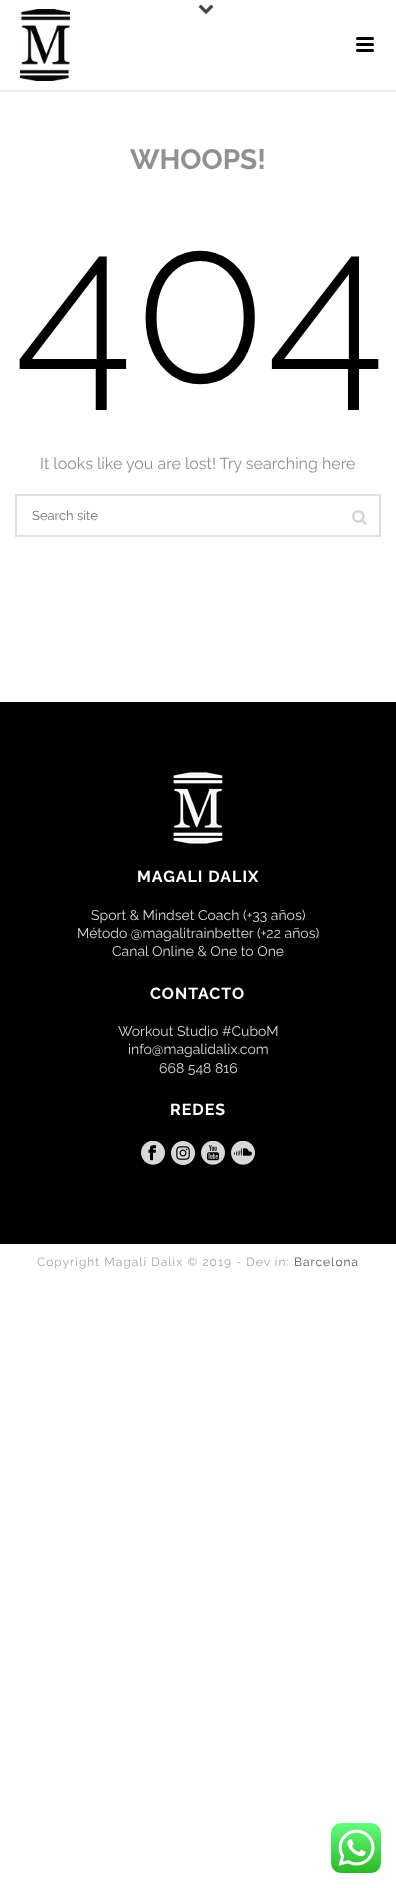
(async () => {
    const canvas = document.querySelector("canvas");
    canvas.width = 396;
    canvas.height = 1888;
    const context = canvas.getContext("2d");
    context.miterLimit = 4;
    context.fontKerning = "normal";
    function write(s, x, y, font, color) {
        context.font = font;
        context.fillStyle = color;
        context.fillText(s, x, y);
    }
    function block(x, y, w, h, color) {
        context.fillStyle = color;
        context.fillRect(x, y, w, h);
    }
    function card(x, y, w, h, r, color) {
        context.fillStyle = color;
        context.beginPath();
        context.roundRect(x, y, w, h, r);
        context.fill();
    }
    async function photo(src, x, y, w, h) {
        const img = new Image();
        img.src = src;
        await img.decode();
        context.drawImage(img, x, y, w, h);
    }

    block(0, 0, 396, 1888, "rgb(255, 255, 255)");
    block(0, 90, 396, 2, "rgb(237, 237, 237)");
    await photo("media/1.png", 198, 4, 16, 10);
    await photo("media/2.png", 20, 9, 50, 72);
    card(356, 37, 18, 3, 1.5, "rgb(0, 0, 0)");
    card(356, 43, 18, 3, 1.5, "rgb(0, 0, 0)");
    card(356, 49, 18, 3, 1.5, "rgb(0, 0, 0)");
    write("WHOOPS!", 130, 169, "bold 28px Raleway", "rgb(144, 144, 144)");
    write("404", 15, 382, "300 220px Raleway", "rgb(0, 0, 0)");
    write("It looks like you are lost! Try searching here", 40, 469, "16px Raleway", "rgb(144, 144, 144)");
    context.strokeStyle = "rgb(223, 223, 223)";
    context.lineWidth = 2;
    context.strokeRect(16, 495, 364, 41);
    write("Search site", 32, 520, "13px Raleway", "rgb(117, 117, 117)");
    await photo("media/3.png", 352, 510, 15, 15);
    block(0, 702, 396, 542, "rgb(0, 0, 0)");
    await photo("media/4.png", 173, 772, 50, 72);
    context.letterSpacing = "1px";
    write("MAGALI DALIX", 137, 882, "bold 16px Raleway", "rgb(255, 255, 255)");
    context.letterSpacing = "0px";
    write("Sport & Mindset Coach (+33 años)", 91, 920, "14px Raleway", "rgb(216, 216, 216)");
    write("Método @magalitrainbetter (+22 años)", 77, 938, "14px Raleway", "rgb(216, 216, 216)");
    write("Canal Online & One to One", 112, 956, "14px Raleway", "rgb(216, 216, 216)");
    context.letterSpacing = "1px";
    write("CONTACTO", 150, 999, "bold 16px Raleway", "rgb(255, 255, 255)");
    context.letterSpacing = "0px";
    write("Workout Studio #CuboM", 118, 1036, "14px Raleway", "rgb(216, 216, 216)");
    write("info@magalidalix.com", 128, 1054, "14px Raleway", "rgb(216, 216, 216)");
    write("668 548 816", 159, 1073, "14px Raleway", "rgb(216, 216, 216)");
    context.letterSpacing = "1px";
    write("REDES", 170, 1115, "bold 16px Raleway", "rgb(255, 255, 255)");
    await photo("media/5.png", 141, 1141, 24, 24);
    await photo("media/6.png", 171, 1141, 24, 24);
    await photo("media/7.png", 201, 1141, 24, 24);
    await photo("media/8.png", 231, 1141, 24, 24);
    write("Copyright Magali Dalix © 2019 - Dev in:", 37, 1266, "12px Raleway", "rgb(163, 165, 167)");
    write("Barcelona", 294, 1266, "12px Raleway", "rgb(88, 88, 88)");
    await photo("media/9.png", 331, 1823, 50, 50);
})();
